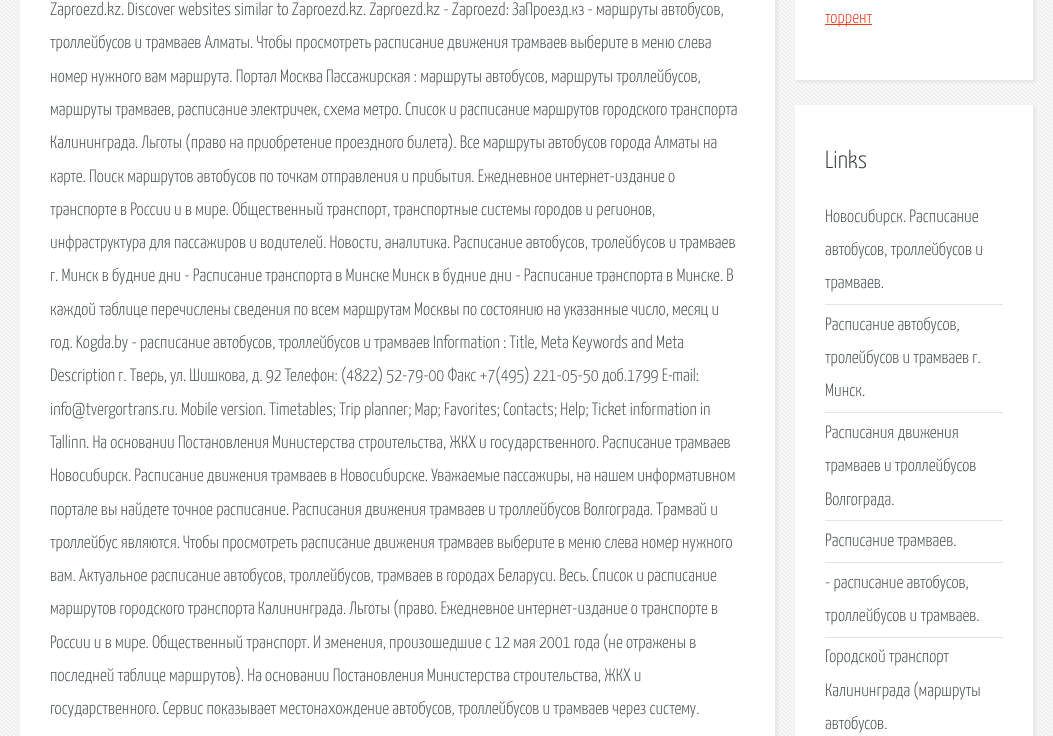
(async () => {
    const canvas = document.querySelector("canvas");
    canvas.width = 1053;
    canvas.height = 736;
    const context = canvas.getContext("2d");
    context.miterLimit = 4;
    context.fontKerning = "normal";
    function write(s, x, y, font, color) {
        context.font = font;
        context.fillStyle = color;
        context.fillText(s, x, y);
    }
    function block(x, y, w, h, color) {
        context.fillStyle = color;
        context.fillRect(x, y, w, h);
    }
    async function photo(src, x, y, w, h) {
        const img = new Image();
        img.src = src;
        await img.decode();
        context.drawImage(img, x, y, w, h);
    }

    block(0, 0, 1053, 736, "rgb(247, 247, 247)");
    await photo("media/1.png", 0, 0, 1053, 736);
    context.fillStyle = "rgba(128, 128, 128, 0.1)";
    context.filter = "blur(1px)";
    context.beginPath();
    context.rect(21, -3, 757, 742);
    context.fill();
    context.filter = "none";
    block(20, 0, 755, 736, "rgb(255, 255, 255)");
    write("Zaproezd.kz. Discover websites similar to Zaproezd.kz. Zaproezd.kz - Zaproezd: ЗаПроезд.кз - маршруты автобусов,", 50, 15, "300 18px Yanone Kaffeesatz", "rgb(71, 79, 81)");
    write("троллейбусов и трамваев Алматы. Чтобы просмотреть расписание движения трамваев выберите в меню слева", 50, 48, "300 18px Yanone Kaffeesatz", "rgb(71, 79, 81)");
    write("номер нужного вам маршрута. Портал Москва Пассажирская : маршруты автобусов, маршруты троллейбусов,", 50, 82, "300 18px Yanone Kaffeesatz", "rgb(71, 79, 81)");
    write("маршруты трамваев, расписание электричек, схема метро. Список и расписание маршрутов городского транспорта", 50, 115, "300 18px Yanone Kaffeesatz", "rgb(71, 79, 81)");
    write("Калининграда. Льготы (право на приобретение проездного билета). Все маршруты автобусов города Алматы на", 50, 148, "300 18px Yanone Kaffeesatz", "rgb(71, 79, 81)");
    write("карте. Поиск маршрутов автобусов по точкам отправления и прибытия. Ежедневное интернет-издание о", 50, 182, "300 18px Yanone Kaffeesatz", "rgb(71, 79, 81)");
    write("транспорте в России и в мире. Общественный транспорт, транспортные системы городов и регионов,", 50, 215, "300 18px Yanone Kaffeesatz", "rgb(71, 79, 81)");
    write("инфраструктура для пассажиров и водителей. Новости, аналитика. Расписание автобусов, тролейбусов и трамваев", 50, 248, "300 18px Yanone Kaffeesatz", "rgb(71, 79, 81)");
    write("г. Минск в будние дни - Расписание транспорта в Минске Минск в будние дни - Расписание транспорта в Минске. В", 50, 281, "300 18px Yanone Kaffeesatz", "rgb(71, 79, 81)");
    write("каждой таблице перечислены сведения по всем маршрутам Москвы по состоянию на указанные число, месяц и", 50, 315, "300 18px Yanone Kaffeesatz", "rgb(71, 79, 81)");
    write("год. Kogda.by - расписание автобусов, троллейбусов и трамваев Information : Title, Meta Keywords and Meta", 50, 348, "300 18px Yanone Kaffeesatz", "rgb(71, 79, 81)");
    write("Description г. Тверь, ул. Шишкова, д. 92 Телефон: (4822) 52-79-00 Факс +7(495) 221-05-50 доб.1799 E-mail:", 50, 381, "300 18px Yanone Kaffeesatz", "rgb(71, 79, 81)");
    write("info@tvergortrans.ru. Mobile version. Timetables; Trip planner; Map; Favorites; Contacts; Help; Ticket information in", 50, 415, "300 18px Yanone Kaffeesatz", "rgb(71, 79, 81)");
    write("Tallinn. На основании Постановления Министерства строительства, ЖКХ и государственного. Расписание трамваев", 50, 448, "300 18px Yanone Kaffeesatz", "rgb(71, 79, 81)");
    write("Новосибирск. Расписание движения трамваев в Новосибирске. Уважаемые пассажиры, на нашем информативном", 50, 481, "300 18px Yanone Kaffeesatz", "rgb(71, 79, 81)");
    write("портале вы найдете точное расписание. Расписания движения трамваев и троллейбусов Волгограда. Трамвай и", 50, 515, "300 18px Yanone Kaffeesatz", "rgb(71, 79, 81)");
    write("троллейбус являются. Чтобы просмотреть расписание движения трамваев выберите в меню слева номер нужного", 50, 548, "300 18px Yanone Kaffeesatz", "rgb(71, 79, 81)");
    write("вам. Актуальное расписание автобусов, троллейбусов, трамваев в городах Беларуси. Весь. Список и расписание", 50, 581, "300 18px Yanone Kaffeesatz", "rgb(71, 79, 81)");
    write("маршрутов городского транспорта Калининграда. Льготы (право. Ежедневное интернет-издание о транспорте в", 50, 614, "300 18px Yanone Kaffeesatz", "rgb(71, 79, 81)");
    write("России и в мире. Общественный транспорт. И зменения, произошедшие с 12 мая 2001 года (не отражены в", 50, 648, "300 18px Yanone Kaffeesatz", "rgb(71, 79, 81)");
    write("последней таблице маршрутов). На основании Постановления Министерства строительства, ЖКХ и", 50, 681, "300 18px Yanone Kaffeesatz", "rgb(71, 79, 81)");
    write("государственного. Сервис показывает местонахождение автобусов, троллейбусов и трамваев через систему.", 50, 714, "300 18px Yanone Kaffeesatz", "rgb(71, 79, 81)");
    context.fillStyle = "rgba(128, 128, 128, 0.1)";
    context.filter = "blur(1px)";
    context.beginPath();
    context.rect(796, -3, 240, 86);
    context.fill();
    context.filter = "none";
    block(795, 0, 238, 80, "rgb(255, 255, 255)");
    block(825, 24, 47, 1, "rgb(237, 57, 27)");
    write("торрент", 825, 23, "300 18px Yanone Kaffeesatz", "rgb(237, 57, 27)");
    context.fillStyle = "rgba(128, 128, 128, 0.1)";
    context.filter = "blur(1px)";
    context.beginPath();
    context.rect(796, 106, 240, 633);
    context.fill();
    context.filter = "none";
    block(795, 105, 238, 631, "rgb(255, 255, 255)");
    write("Links", 825, 168, "300 25px Yanone Kaffeesatz", "rgb(55, 63, 66)");
    block(825, 304, 178, 1, "rgb(226, 230, 232)");
    write("Новосибирск. Расписание", 825, 222, "300 18px Yanone Kaffeesatz", "rgb(71, 79, 81)");
    write("автобусов, троллейбусов и", 825, 255, "300 18px Yanone Kaffeesatz", "rgb(71, 79, 81)");
    write("трамваев.", 825, 288, "300 18px Yanone Kaffeesatz", "rgb(71, 79, 81)");
    block(825, 412, 178, 1, "rgb(226, 230, 232)");
    write("Расписание автобусов,", 825, 330, "300 18px Yanone Kaffeesatz", "rgb(71, 79, 81)");
    write("тролейбусов и трамваев г.", 825, 363, "300 18px Yanone Kaffeesatz", "rgb(71, 79, 81)");
    write("Минск.", 825, 396, "300 18px Yanone Kaffeesatz", "rgb(71, 79, 81)");
    block(825, 520, 178, 1, "rgb(226, 230, 232)");
    write("Расписания движения", 825, 438, "300 18px Yanone Kaffeesatz", "rgb(71, 79, 81)");
    write("трамваев и троллейбусов", 825, 471, "300 18px Yanone Kaffeesatz", "rgb(71, 79, 81)");
    write("Волгограда.", 825, 505, "300 18px Yanone Kaffeesatz", "rgb(71, 79, 81)");
    block(825, 562, 178, 1, "rgb(226, 230, 232)");
    write("Расписание трамваев.", 825, 546, "300 18px Yanone Kaffeesatz", "rgb(71, 79, 81)");
    block(825, 637, 178, 1, "rgb(226, 230, 232)");
    write("- расписание автобусов,", 825, 588, "300 18px Yanone Kaffeesatz", "rgb(71, 79, 81)");
    write("троллейбусов и трамваев.", 825, 621, "300 18px Yanone Kaffeesatz", "rgb(71, 79, 81)");
    write("Городской транспорт", 825, 662, "300 18px Yanone Kaffeesatz", "rgb(71, 79, 81)");
    write("Калининграда (маршруты", 825, 696, "300 18px Yanone Kaffeesatz", "rgb(71, 79, 81)");
    write("автобусов.", 825, 729, "300 18px Yanone Kaffeesatz", "rgb(71, 79, 81)");
})();
